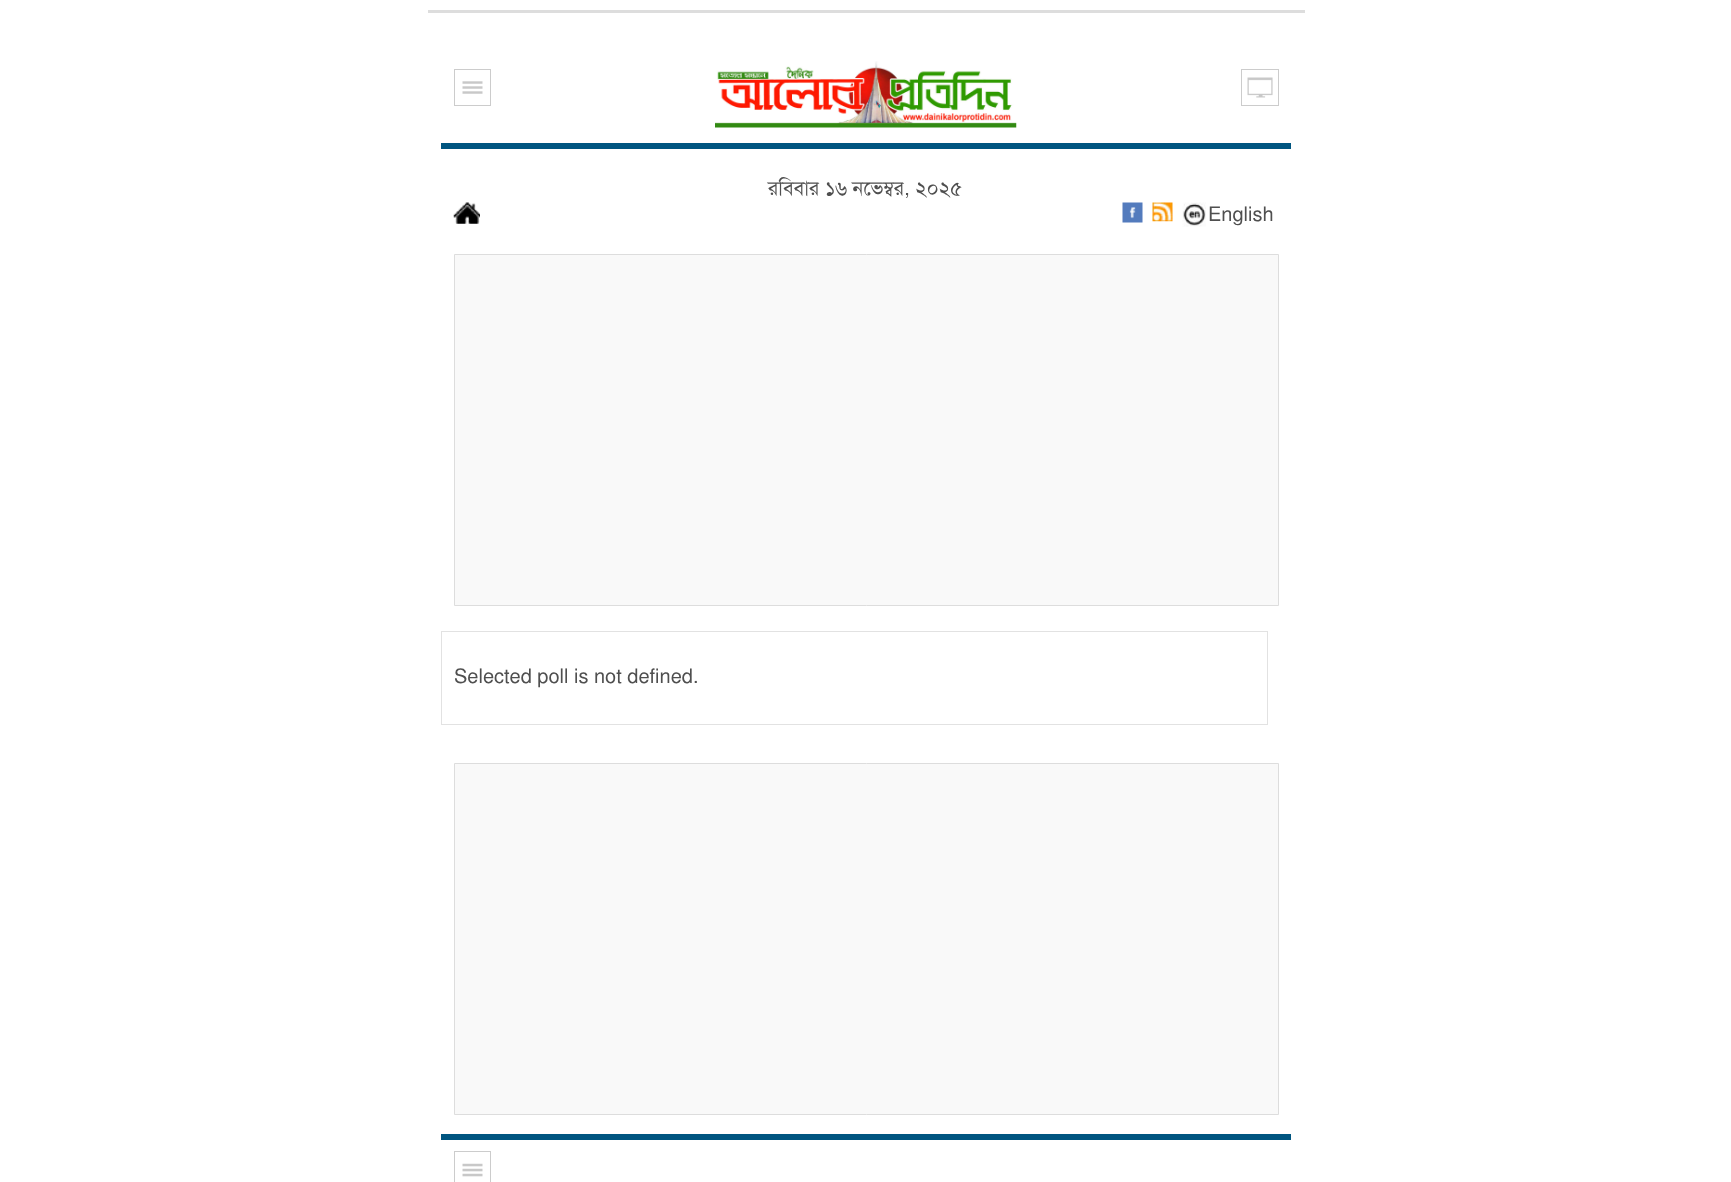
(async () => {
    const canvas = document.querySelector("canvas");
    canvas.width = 1731;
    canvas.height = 1182;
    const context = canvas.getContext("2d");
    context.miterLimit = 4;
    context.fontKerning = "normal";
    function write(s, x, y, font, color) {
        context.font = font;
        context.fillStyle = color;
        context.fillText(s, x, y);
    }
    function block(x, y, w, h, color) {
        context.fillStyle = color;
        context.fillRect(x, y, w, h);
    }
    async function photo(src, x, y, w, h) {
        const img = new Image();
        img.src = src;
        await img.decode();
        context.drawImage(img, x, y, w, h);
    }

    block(0, 0, 1731, 1182, "rgb(255, 255, 255)");
    block(428, 10, 877, 3, "rgb(221, 221, 221)");
    block(441, 143, 850, 6, "rgb(0, 85, 128)");
    await photo("media/1.png", 462, 81, 21, 13);
    context.strokeStyle = "rgb(204, 204, 204)";
    context.strokeRect(454.5, 69.5, 36, 36);
    await photo("media/2.png", 715, 61, 302, 67);
    await photo("media/3.png", 1247, 77, 26, 21);
    context.strokeRect(1241.5, 69.5, 37, 36);
    write("রবিবার ১৬ নভেম্বর, ২০২৫", 768, 195, "20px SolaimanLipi", "rgb(79, 79, 79)");
    await photo("media/4.png", 453, 202, 27, 22);
    await photo("media/5.png", 1122, 202, 21, 21);
    await photo("media/6.png", 1152, 202, 21, 20);
    await photo("media/7.png", 1182, 202, 24, 25);
    write("English", 1208, 221, "20px SolaimanLipi", "rgb(79, 79, 79)");
    context.fillStyle = "rgb(249, 249, 249)";
    context.beginPath();
    context.rect(454.5, 254.5, 824, 351);
    context.fill();
    context.strokeStyle = "rgb(221, 221, 221)";
    context.stroke();
    context.strokeStyle = "rgb(226, 226, 226)";
    context.strokeRect(441.5, 631.5, 826, 93);
    write("Selected poll is not defined.", 454, 683, "20px SolaimanLipi", "rgb(79, 79, 79)");
    context.fillStyle = "rgb(249, 249, 249)";
    context.beginPath();
    context.rect(454.5, 763.5, 824, 351);
    context.fill();
    context.strokeStyle = "rgb(221, 221, 221)";
    context.stroke();
    block(441, 1134, 850, 6, "rgb(0, 85, 128)");
    await photo("media/8.png", 462, 1163, 21, 14);
    context.strokeStyle = "rgb(204, 204, 204)";
    context.strokeRect(454.5, 1151.5, 36, 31);
})();
